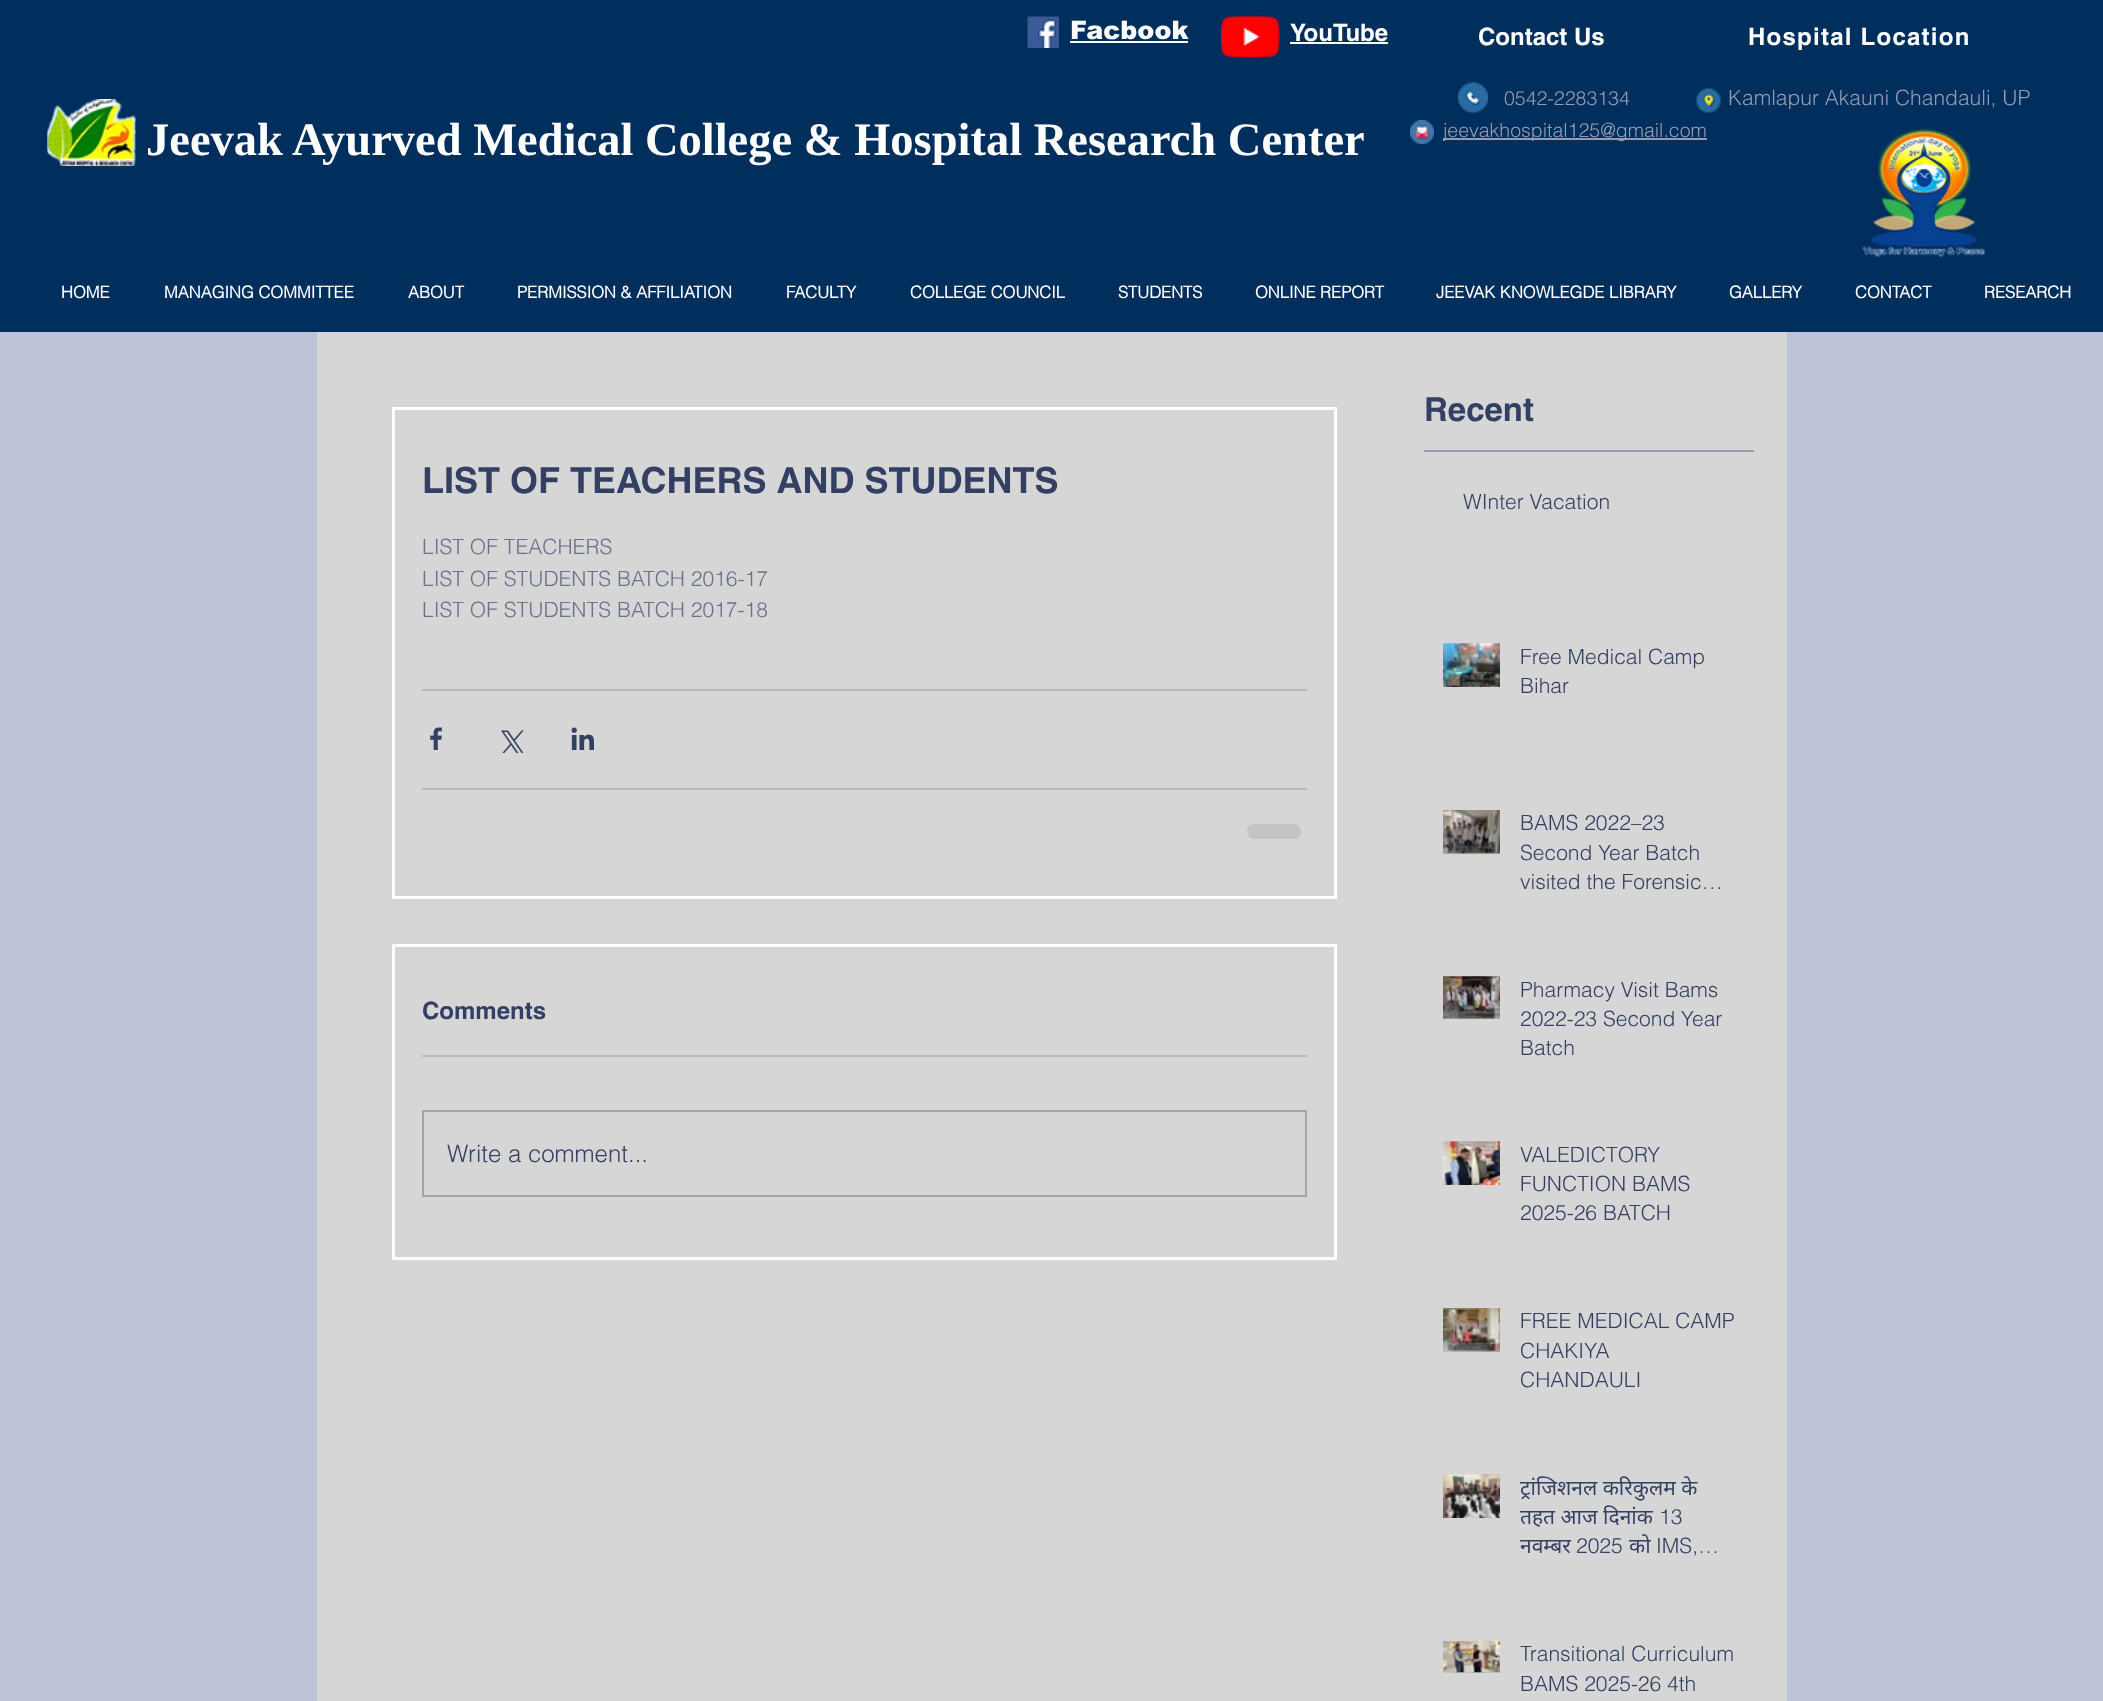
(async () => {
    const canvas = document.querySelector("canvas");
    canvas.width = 2103;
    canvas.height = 1701;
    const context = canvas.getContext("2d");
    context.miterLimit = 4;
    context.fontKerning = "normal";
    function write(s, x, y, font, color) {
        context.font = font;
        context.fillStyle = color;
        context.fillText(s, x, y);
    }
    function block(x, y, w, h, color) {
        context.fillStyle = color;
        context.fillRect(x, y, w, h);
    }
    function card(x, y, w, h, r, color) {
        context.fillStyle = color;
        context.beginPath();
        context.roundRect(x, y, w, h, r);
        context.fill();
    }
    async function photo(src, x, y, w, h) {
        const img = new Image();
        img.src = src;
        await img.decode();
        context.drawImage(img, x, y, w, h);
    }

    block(0, 0, 2103, 1701, "rgb(190, 196, 216)");
    block(0, 0, 2103, 332, "rgb(0, 46, 93)");
    await photo("media/1.png", 1027, 16, 32, 32);
    write("Facbook", 1070, 39, "900 25.5px arial", "rgb(255, 255, 255)");
    block(1070, 41, 118, 2, "rgb(255, 255, 255)");
    await photo("media/2.png", 1221, 15, 59, 44);
    write("YouTube", 1290, 41, "bold 24px helvetica", "rgb(255, 255, 255)");
    block(1290, 42, 98, 2, "rgb(255, 255, 255)");
    write("Contact Us", 1478, 45, "bold 24px helvetica", "rgb(255, 255, 255)");
    context.letterSpacing = "1.25px";
    write("Hospital Location", 1748, 45, "bold 24px helvetica", "rgb(255, 255, 255)");
    await photo("media/3.png", 1458, 82, 30, 31);
    await photo("media/4.png", 1696, 88, 25, 25);
    context.letterSpacing = "0px";
    write("Kamlapur Akauni Chandauli, UP", 1728, 105, "300 21px helvetica", "rgb(149, 156, 178)");
    await photo("media/5.png", 47, 99, 89, 68);
    write("Jeevak Ayurved Medical College & Hospital Research Center", 146, 155, "bold 46.5px Liberation Serif", "rgb(255, 255, 255)");
    await photo("media/6.png", 1410, 120, 24, 24);
    write("0542-2283134", 1504, 105, "300 19.5px helvetica", "rgb(149, 156, 178)");
    block(1443, 138, 264, 2, "rgb(149, 156, 178)");
    write("jeevakhospital125@gmail.com", 1443, 137, "300 19.5px helvetica", "rgb(149, 156, 178)");
    await photo("media/7.png", 1862, 128, 124, 129);
    write("HOME", 61, 298, "bold 16.5px 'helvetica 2'", "rgb(255, 255, 255)");
    write("MANAGING COMMITTEE", 164, 298, "bold 16.5px 'helvetica 2'", "rgb(255, 255, 255)");
    write("ABOUT", 408, 298, "bold 16.5px 'helvetica 2'", "rgb(255, 255, 255)");
    write("PERMISSION & AFFILIATION", 517, 298, "bold 16.5px 'helvetica 2'", "rgb(255, 255, 255)");
    write("FACULTY", 786, 298, "bold 16.5px 'helvetica 2'", "rgb(255, 255, 255)");
    write("COLLEGE COUNCIL", 910, 298, "bold 16.5px 'helvetica 2'", "rgb(255, 255, 255)");
    write("STUDENTS", 1118, 298, "bold 16.5px 'helvetica 2'", "rgb(255, 255, 255)");
    write("ONLINE REPORT", 1255, 298, "bold 16.5px 'helvetica 2'", "rgb(255, 255, 255)");
    write("JEEVAK KNOWLEGDE LIBRARY", 1436, 298, "bold 16.5px 'helvetica 2'", "rgb(255, 255, 255)");
    write("GALLERY", 1729, 298, "bold 16.5px 'helvetica 2'", "rgb(255, 255, 255)");
    write("CONTACT", 1855, 298, "bold 16.5px 'helvetica 2'", "rgb(255, 255, 255)");
    write("RESEARCH", 1984, 298, "bold 16.5px 'helvetica 2'", "rgb(255, 255, 255)");
    block(317, 332, 1470, 1369, "rgb(214, 214, 214)");
    write("Recent", 1424, 421, "bold 33px helvetica", "rgb(52, 63, 100)");
    block(1424, 450, 330, 2, "rgb(149, 156, 178)");
    context.strokeStyle = "rgb(255, 255, 255)";
    context.lineWidth = 3;
    context.strokeRect(393.5, 408.5, 942, 489);
    write("LIST OF TEACHERS AND STUDENTS", 422, 493, "bold 36px helvetica", "rgb(52, 63, 100)");
    write("LIST OF TEACHERS", 422, 554, "300 21px helvetica", "rgb(105, 113, 139)");
    write("LIST OF STUDENTS BATCH 2016-17", 422, 586, "300 21px helvetica", "rgb(105, 113, 139)");
    write("LIST OF STUDENTS BATCH 2017-18", 422, 617, "300 21px helvetica", "rgb(105, 113, 139)");
    block(422, 689, 885, 2, "rgb(182, 184, 191)");
    await photo("media/8.png", 430, 727, 12, 23);
    await photo("media/9.png", 501, 730, 23, 23);
    await photo("media/10.png", 571, 727, 23, 23);
    block(422, 788, 885, 2, "rgb(182, 184, 191)");
    card(1247, 824, 54, 15, 7.5, "rgb(195, 196, 200)");
    context.strokeRect(393.5, 945.5, 942, 313);
    write("Comments", 422, 1019, "bold 24px helvetica", "rgb(52, 63, 100)");
    block(422, 1055, 885, 2, "rgb(182, 184, 191)");
    context.strokeStyle = "rgb(164, 164, 164)";
    context.lineWidth = 2;
    context.strokeRect(423, 1111, 883, 85);
    write("Write a comment...", 447, 1162, "300 24px helvetica", "rgb(52, 63, 100)");
    write("WInter Vacation", 1463, 509, "300 21px helvetica", "rgb(52, 63, 100)");
    await photo("media/11.png", 1443, 643, 57, 1);
    await photo("media/12.png", 1443, 643, 57, 44);
    write("Free Medical Camp", 1520, 664, "300 21px helvetica", "rgb(52, 63, 100)");
    write("Bihar", 1520, 693, "300 21px helvetica", "rgb(52, 63, 100)");
    await photo("media/13.png", 1443, 810, 57, 43);
    await photo("media/14.png", 1443, 853, 57, 1);
    write("BAMS 2022–23", 1520, 830, "300 21px helvetica", "rgb(52, 63, 100)");
    write("Second Year Batch", 1520, 860, "300 21px helvetica", "rgb(52, 63, 100)");
    write("visited the Forensic…", 1520, 889, "300 21px helvetica", "rgb(52, 63, 100)");
    await photo("media/15.png", 1443, 976, 57, 43);
    await photo("media/16.png", 1443, 976, 57, 43);
    write("Pharmacy Visit Bams", 1520, 997, "300 21px helvetica", "rgb(52, 63, 100)");
    write("2022-23 Second Year", 1520, 1026, "300 21px helvetica", "rgb(52, 63, 100)");
    write("Batch", 1520, 1055, "300 21px helvetica", "rgb(52, 63, 100)");
    await photo("media/17.png", 1443, 1141, 57, 1);
    await photo("media/18.png", 1443, 1141, 57, 44);
    write("VALEDICTORY", 1520, 1162, "300 21px helvetica", "rgb(52, 63, 100)");
    write("FUNCTION BAMS", 1520, 1191, "300 21px helvetica", "rgb(52, 63, 100)");
    write("2025-26 BATCH", 1520, 1220, "300 21px helvetica", "rgb(52, 63, 100)");
    await photo("media/19.png", 1443, 1308, 57, 43);
    await photo("media/20.png", 1443, 1351, 57, 1);
    write("FREE MEDICAL CAMP", 1520, 1328, "300 21px helvetica", "rgb(52, 63, 100)");
    write("CHAKIYA", 1520, 1358, "300 21px helvetica", "rgb(52, 63, 100)");
    write("CHANDAULI", 1520, 1387, "300 21px helvetica", "rgb(52, 63, 100)");
    await photo("media/21.png", 1443, 1474, 57, 1);
    await photo("media/22.png", 1443, 1474, 57, 44);
    context.save();
    context.beginPath();
    context.rect(1520, 1473, 216, 89);
    context.clip();
    write("ट्रांजिशनल करिकुलम के", 1520, 1495, "21px Noto Sans", "rgb(52, 63, 100)");
    context.restore();
    write("तहत आज दिनांक", 1520, 1524, "21px Noto Sans", "rgb(52, 63, 100)");
    write("13", 1659, 1524, "300 21px helvetica", "rgb(52, 63, 100)");
    write("नवम्बर", 1520, 1553, "21px Noto Sans", "rgb(52, 63, 100)");
    write("2025", 1576, 1553, "300 21px helvetica", "rgb(52, 63, 100)");
    write("को", 1629, 1553, "21px Noto Sans", "rgb(52, 63, 100)");
    write("IMS,…", 1656, 1553, "300 21px helvetica", "rgb(52, 63, 100)");
    await photo("media/23.png", 1443, 1641, 57, 31);
    await photo("media/24.png", 1443, 1672, 57, 1);
    write("Transitional Curriculum", 1520, 1661, "300 21px helvetica", "rgb(52, 63, 100)");
    write("BAMS 2025-26 4th", 1520, 1691, "300 21px helvetica", "rgb(52, 63, 100)");
})();
